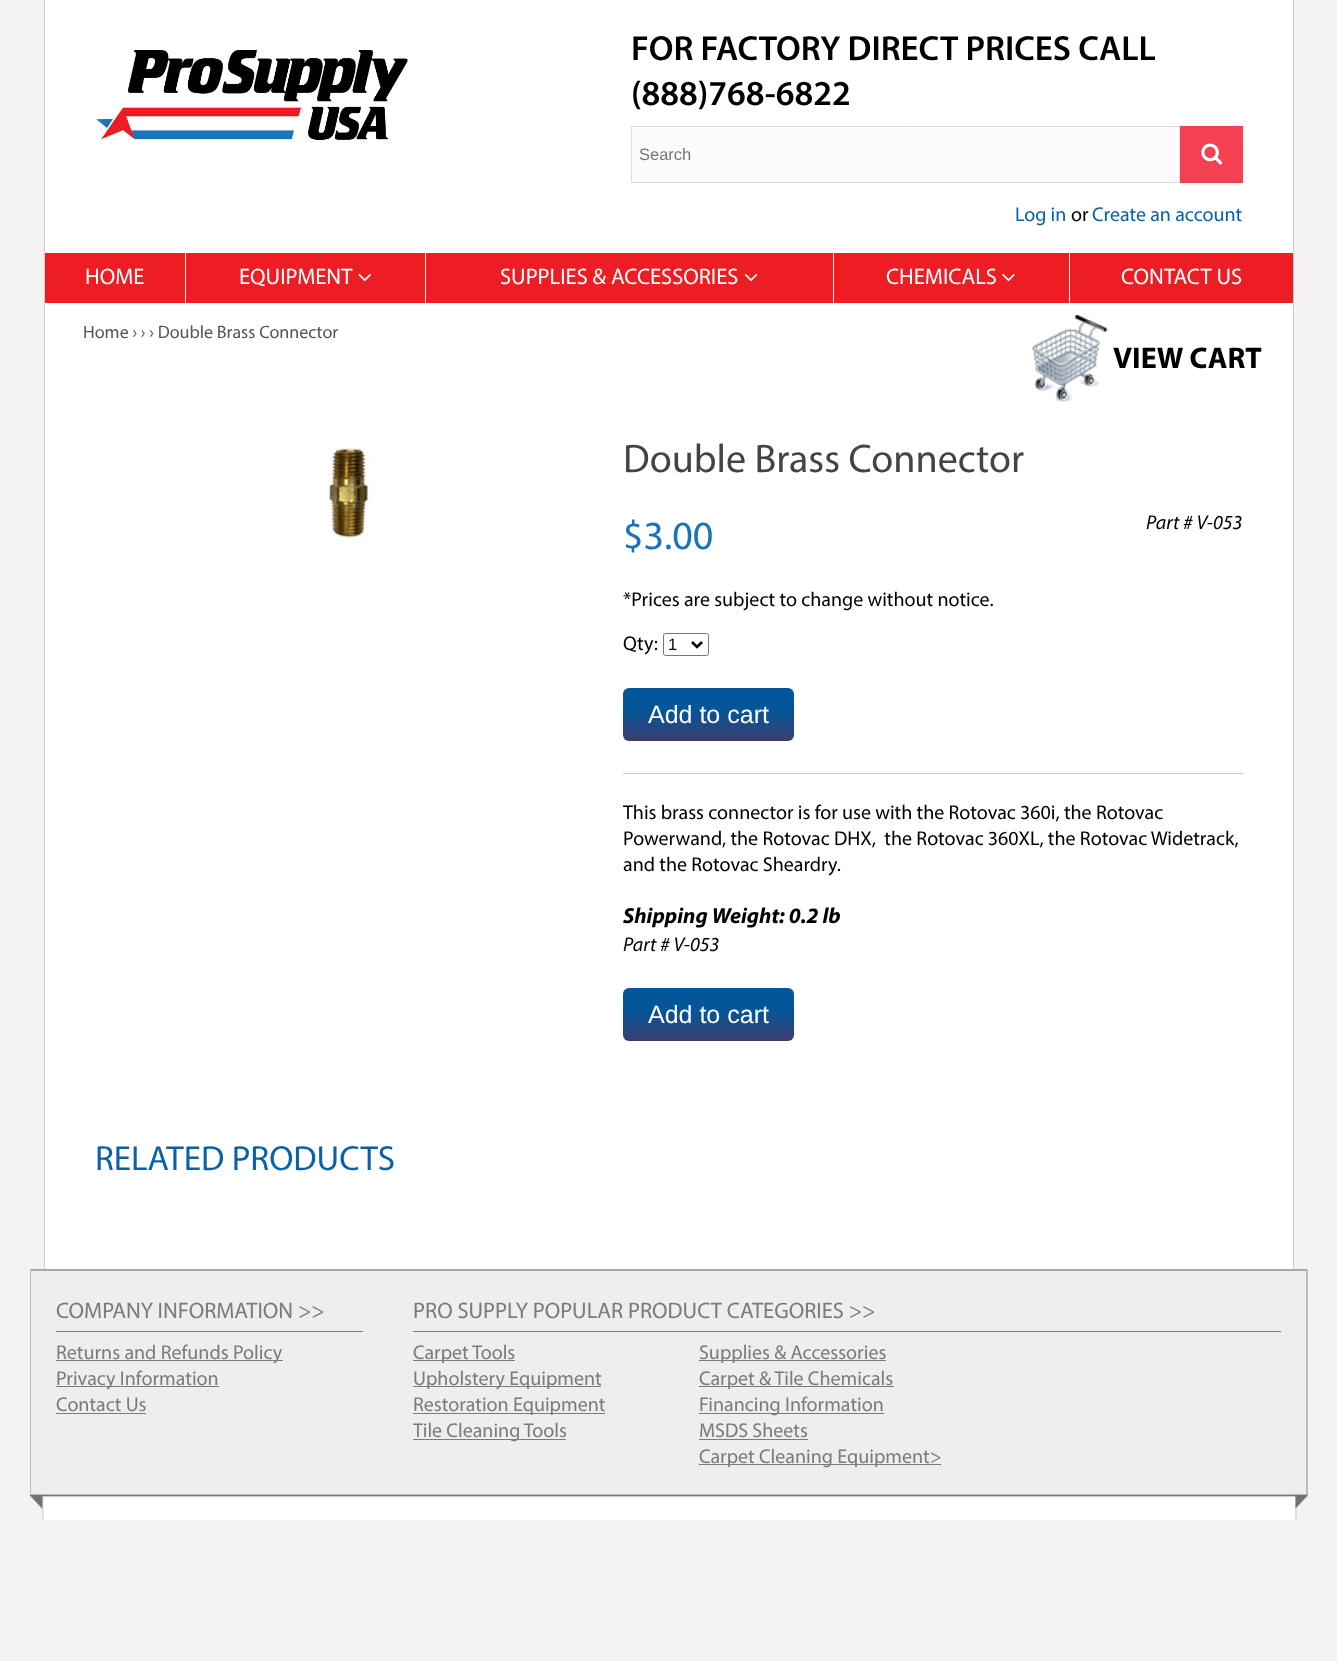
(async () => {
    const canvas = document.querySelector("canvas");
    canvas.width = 1337;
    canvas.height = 1661;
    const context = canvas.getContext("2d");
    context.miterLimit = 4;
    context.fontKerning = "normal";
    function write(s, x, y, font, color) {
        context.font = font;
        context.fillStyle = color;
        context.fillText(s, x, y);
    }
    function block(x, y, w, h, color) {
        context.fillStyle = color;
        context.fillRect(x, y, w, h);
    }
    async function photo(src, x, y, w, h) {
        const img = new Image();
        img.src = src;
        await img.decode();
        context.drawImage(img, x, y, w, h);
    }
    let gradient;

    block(0, 0, 1337, 1661, "rgb(245, 242, 242)");
    block(45, 0, 1248, 1269, "rgb(255, 255, 255)");
    block(1293, 0, 1, 1269, "rgb(213, 206, 206)");
    block(44, 0, 1, 1269, "rgb(213, 206, 206)");
    await photo("media/1.png", 96, 50, 312, 91);
    write("FOR FACTORY DIRECT PRICES CALL", 631, 60, "600 35px Myriad", "rgb(0, 0, 0)");
    write("(888)768-6822", 631, 105, "600 35px Myriad", "rgb(0, 0, 0)");
    context.fillStyle = "rgb(251, 251, 251)";
    context.beginPath();
    context.rect(631.5, 126.5, 548, 56);
    context.fill();
    context.strokeStyle = "rgb(220, 218, 218)";
    context.stroke();
    write("Search", 639, 160, "16.5px Liberation Sans", "rgb(117, 117, 117)");
    block(1180, 126, 63, 57, "rgb(244, 64, 81)");
    await photo("media/2.png", 1201, 143, 22, 22);
    write("Log in", 1015, 221, "20px Myriad", "rgb(9, 98, 169)");
    write("or", 1071, 221, "20px Myriad", "rgb(0, 0, 0)");
    write("Create an account", 1092, 221, "20px Myriad", "rgb(9, 98, 169)");
    block(45, 253, 1248, 50, "rgb(236, 29, 35)");
    block(185, 253, 1, 50, "rgb(255, 255, 255)");
    write("HOME", 85, 284, "22.5px Myriad", "rgb(255, 255, 255)");
    block(425, 253, 1, 50, "rgb(255, 255, 255)");
    write("EQUIPMENT", 239, 284, "22.5px Myriad", "rgb(255, 255, 255)");
    await photo("media/3.png", 358, 274, 13, 8);
    block(833, 253, 1, 50, "rgb(255, 255, 255)");
    write("SUPPLIES & ACCESSORIES", 500, 284, "22.5px Myriad", "rgb(255, 255, 255)");
    await photo("media/4.png", 744, 274, 14, 8);
    block(1069, 253, 1, 50, "rgb(255, 255, 255)");
    write("CHEMICALS", 886, 284, "22.5px Myriad", "rgb(255, 255, 255)");
    await photo("media/5.png", 1002, 274, 13, 8);
    write("CONTACT US", 1121, 284, "22.5px Myriad", "rgb(255, 255, 255)");
    write("Home › › › Double Brass Connector", 83, 338, "18px Myriad", "rgb(85, 85, 85)");
    await photo("media/6.png", 1031, 315, 78, 87);
    write("VIEW CART", 1113, 368, "bold 30px Myriad", "rgb(0, 0, 0)");
    await photo("media/7.png", 328, 446, 43, 95);
    write("Double Brass Connector", 623, 472, "40px Myriad", "rgb(68, 68, 68)");
    write("$3.00", 623, 549, "40px Myriad", "rgb(23, 115, 189)");
    write("Part # V-053", 1146, 529, "italic 20px Myriad", "rgb(0, 0, 0)");
    write("*Prices are subject to change without notice.", 623, 606, "20px Myriad", "rgb(0, 0, 0)");
    write("Qty:", 623, 650, "20px Myriad", "rgb(0, 0, 0)");
    context.beginPath();
    context.roundRect(663.5, 633.5, 45, 22, 2);
    context.strokeStyle = "rgb(118, 118, 118)";
    context.stroke();
    context.beginPath();
    context.moveTo(692, 642);
    context.lineTo(697, 647);
    context.lineTo(702, 642);
    context.strokeStyle = "rgb(0, 0, 0)";
    context.lineWidth = 2.5;
    context.stroke();
    write("1", 668, 650, "16.5px Liberation Sans", "rgb(0, 0, 0)");
    gradient = context.createLinearGradient(708, 688, 708, 741);
    gradient.addColorStop(0.41, "rgb(3, 86, 154)");
    gradient.addColorStop(1, "rgb(60, 61, 109)");
    context.fillStyle = gradient;
    context.beginPath();
    context.roundRect(623, 688, 171, 53, 6);
    context.fill();
    write("Add to cart", 648, 723, "25px Liberation Sans", "rgb(255, 255, 255)");
    block(623, 773, 620, 1, "rgb(206, 206, 206)");
    write("This brass connector is for use with the Rotovac 360i, the Rotovac", 623, 819, "20px Myriad", "rgb(0, 0, 0)");
    write("Powerwand, the Rotovac DHX,  the Rotovac 360XL, the Rotovac Widetrack,", 623, 845, "20px Myriad", "rgb(0, 0, 0)");
    write("and the Rotovac Sheardry.", 623, 871, "20px Myriad", "rgb(0, 0, 0)");
    write("Shipping Weight: 0.2 lb", 623, 923, "italic bold 22px Myriad", "rgb(0, 0, 0)");
    write("Part # V-053", 623, 951, "italic 20px Myriad", "rgb(0, 0, 0)");
    gradient = context.createLinearGradient(708, 988, 708, 1041);
    gradient.addColorStop(0.41, "rgb(3, 86, 154)");
    gradient.addColorStop(1, "rgb(60, 61, 109)");
    context.fillStyle = gradient;
    context.beginPath();
    context.roundRect(623, 988, 171, 53, 6);
    context.fill();
    write("Add to cart", 648, 1023, "25px Liberation Sans", "rgb(255, 255, 255)");
    write("RELATED PRODUCTS", 95, 1170, "35px Myriad", "rgb(9, 98, 169)");
    block(31, 1271, 1275, 223, "rgb(238, 238, 238)");
    context.fillStyle = "rgb(170, 170, 170)";
    context.beginPath();
    context.moveTo(30, 1269);
    context.lineTo(1308, 1269);
    context.lineTo(1306, 1271);
    context.lineTo(31, 1271);
    context.closePath();
    context.fill();
    context.fillStyle = "rgb(187, 187, 187)";
    context.beginPath();
    context.moveTo(1308, 1269);
    context.lineTo(1308, 1495);
    context.lineTo(1306, 1494);
    context.lineTo(1306, 1271);
    context.closePath();
    context.fill();
    block(30, 1494, 1278, 1, "rgb(187, 187, 187)");
    context.beginPath();
    context.moveTo(30, 1495);
    context.lineTo(30, 1269);
    context.lineTo(31, 1271);
    context.lineTo(31, 1494);
    context.closePath();
    context.fill();
    block(56, 1331, 307, 1, "rgb(123, 123, 123)");
    write("COMPANY INFORMATION >>", 56, 1318, "22.5px Myriad", "rgb(123, 123, 123)");
    block(56, 1360, 227, 1, "rgb(123, 123, 123)");
    write("Returns and Refunds Policy", 56, 1359, "20px Myriad", "rgb(123, 123, 123)");
    block(56, 1386, 163, 1, "rgb(123, 123, 123)");
    write("Privacy Information", 56, 1385, "20px Myriad", "rgb(123, 123, 123)");
    write("Contact Us", 56, 1411, "20px Myriad", "rgb(123, 123, 123)");
    block(56, 1413, 90, 1, "rgb(123, 123, 123)");
    block(413, 1331, 868, 1, "rgb(123, 123, 123)");
    write("PRO SUPPLY POPULAR PRODUCT CATEGORIES >>", 413, 1318, "22.5px Myriad", "rgb(123, 123, 123)");
    block(413, 1360, 102, 1, "rgb(123, 123, 123)");
    write("Carpet Tools", 413, 1359, "20px Myriad", "rgb(123, 123, 123)");
    block(413, 1386, 188, 1, "rgb(123, 123, 123)");
    write("Upholstery Equipment", 413, 1385, "20px Myriad", "rgb(123, 123, 123)");
    block(413, 1413, 192, 1, "rgb(123, 123, 123)");
    write("Restoration Equipment", 413, 1411, "20px Myriad", "rgb(123, 123, 123)");
    block(413, 1439, 153, 1, "rgb(123, 123, 123)");
    write("Tile Cleaning Tools", 413, 1437, "20px Myriad", "rgb(123, 123, 123)");
    block(699, 1360, 187, 1, "rgb(123, 123, 123)");
    write("Supplies & Accessories", 699, 1359, "20px Myriad", "rgb(123, 123, 123)");
    block(699, 1386, 195, 1, "rgb(123, 123, 123)");
    write("Carpet & Tile Chemicals", 699, 1385, "20px Myriad", "rgb(123, 123, 123)");
    block(699, 1413, 185, 1, "rgb(123, 123, 123)");
    write("Financing Information", 699, 1411, "20px Myriad", "rgb(123, 123, 123)");
    write("MSDS Sheets", 699, 1437, "20px Myriad", "rgb(123, 123, 123)");
    block(699, 1439, 109, 1, "rgb(123, 123, 123)");
    block(699, 1464, 242, 1, "rgb(123, 123, 123)");
    write("Carpet Cleaning Equipment>", 699, 1463, "20px Myriad", "rgb(123, 123, 123)");
    await photo("media/8.png", 30, 1495, 1278, 25);
})();
